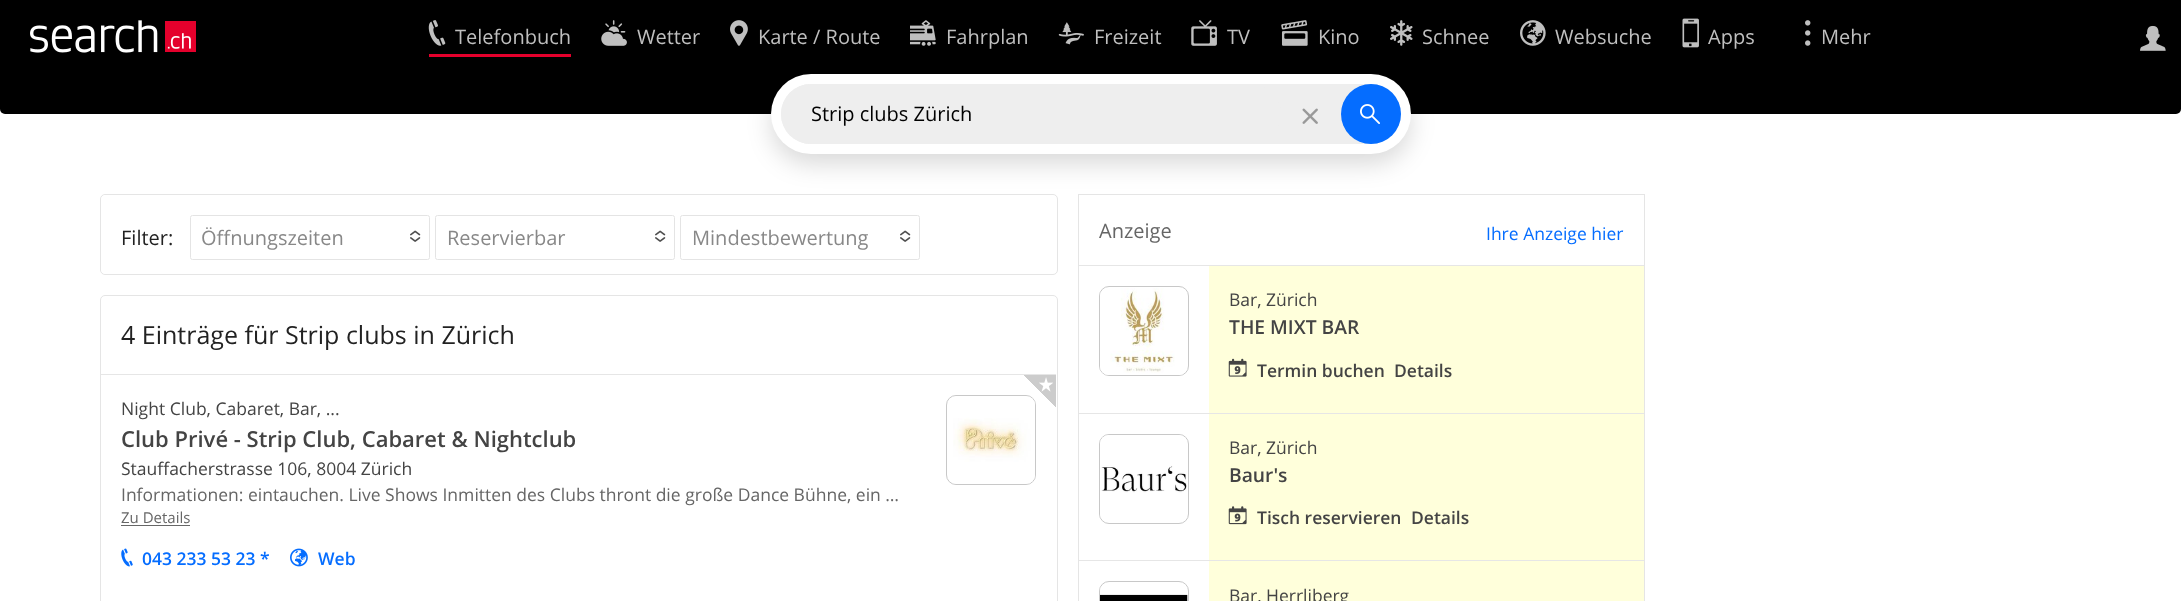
(async () => {
    const canvas = document.querySelector("canvas");
    canvas.width = 2181;
    canvas.height = 601;
    const context = canvas.getContext("2d");
    context.miterLimit = 4;
    context.fontKerning = "normal";
    function write(s, x, y, font, color) {
        context.font = font;
        context.fillStyle = color;
        context.fillText(s, x, y);
    }
    function block(x, y, w, h, color) {
        context.fillStyle = color;
        context.fillRect(x, y, w, h);
    }
    function card(x, y, w, h, r, color) {
        context.fillStyle = color;
        context.beginPath();
        context.roundRect(x, y, w, h, r);
        context.fill();
    }
    async function photo(src, x, y, w, h) {
        const img = new Image();
        img.src = src;
        await img.decode();
        context.drawImage(img, x, y, w, h);
    }
    let gradient;

    block(0, 0, 2181, 601, "rgb(255, 255, 255)");
    block(0, 0, 2181, 74, "rgb(0, 0, 0)");
    await photo("media/1.png", 30, 20, 166, 33);
    block(429, 54, 142, 3, "rgb(228, 0, 44)");
    await photo("media/2.png", 428, 20, 18, 26);
    write("Telefonbuch", 455, 44, "20px Open Sans", "rgb(191, 191, 191)");
    await photo("media/3.png", 601, 20, 26, 26);
    write("Wetter", 637, 44, "20px Open Sans", "rgb(191, 191, 191)");
    await photo("media/4.png", 730, 20, 18, 26);
    write("Karte / Route", 758, 44, "20px Open Sans", "rgb(191, 191, 191)");
    await photo("media/5.png", 910, 20, 26, 26);
    write("Fahrplan", 946, 44, "20px Open Sans", "rgb(191, 191, 191)");
    await photo("media/6.png", 1058, 22, 26, 23);
    write("Freizeit", 1094, 44, "20px Open Sans", "rgb(191, 191, 191)");
    await photo("media/7.png", 1191, 20, 26, 26);
    write("TV", 1227, 44, "20px Open Sans", "rgb(191, 191, 191)");
    await photo("media/8.png", 1281, 20, 27, 26);
    write("Kino", 1318, 44, "20px Open Sans", "rgb(191, 191, 191)");
    await photo("media/9.png", 1390, 20, 23, 26);
    write("Schnee", 1422, 44, "20px Open Sans", "rgb(191, 191, 191)");
    await photo("media/10.png", 1520, 20, 26, 26);
    write("Websuche", 1555, 44, "20px Open Sans", "rgb(191, 191, 191)");
    await photo("media/11.png", 1682, 18, 17, 30);
    write("Apps", 1708, 44, "20px Open Sans", "rgb(191, 191, 191)");
    await photo("media/12.png", 1805, 20, 6, 26);
    write("Mehr", 1821, 44, "20px Open Sans", "rgb(191, 191, 191)");
    await photo("media/13.png", 2140, 25, 26, 26);
    context.fillStyle = "rgb(0, 0, 0)";
    context.beginPath();
    context.roundRect(0, 74, 2181, 40, [0, 0, 5, 5]);
    context.fill();
    context.beginPath();
    context.roundRect(100.5, 194.5, 957, 80, 4.5);
    context.strokeStyle = "rgb(229, 229, 229)";
    context.stroke();
    card(101, 195, 955, 79, 5, "rgb(255, 255, 255)");
    context.strokeRect(1078.5, 194.5, 566, 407);
    context.fillStyle = "rgba(0, 0, 0, 0.15)";
    context.filter = "blur(12.5px)";
    context.beginPath();
    context.roundRect(771, 84, 640, 80, 40);
    context.fill();
    context.filter = "none";
    card(771, 74, 640, 80, 40, "rgb(255, 255, 255)");
    card(781, 84, 620, 60, 30, "rgb(238, 238, 238)");
    card(781, 84, 500, 60, 30, "rgb(238, 238, 238)");
    write("Strip clubs Zürich", 811, 121, "20px Open Sans", "rgb(0, 0, 0)");
    await photo("media/14.png", 1302, 108, 16, 16);
    context.fillStyle = "rgb(5, 109, 255)";
    context.beginPath();
    context.arc(1371, 114, 30, 0, Math.PI * 2);
    context.fill();
    await photo("media/15.png", 1360, 104, 20, 20);
    write("Filter:", 121, 245, "20px Open Sans", "rgb(34, 34, 34)");
    context.beginPath();
    context.roundRect(190.5, 215.5, 239, 44, 2);
    context.strokeStyle = "rgb(228, 228, 228)";
    context.stroke();
    write("Öffnungszeiten", 201, 245, "20px Open Sans", "rgb(136, 136, 136)");
    await photo("media/16.png", 410, 230, 11, 12);
    context.beginPath();
    context.roundRect(435.5, 215.5, 239, 44, 2);
    context.stroke();
    write("Reservierbar", 447, 245, "20px Open Sans", "rgb(136, 136, 136)");
    await photo("media/16.png", 655, 230, 11, 12);
    context.beginPath();
    context.roundRect(680.5, 215.5, 239, 44, 2);
    context.stroke();
    write("Mindestbewertung", 692, 245, "20px Open Sans", "rgb(136, 136, 136)");
    await photo("media/16.png", 900, 230, 11, 12);
    context.beginPath();
    context.roundRect(100.5, 295.5, 957, 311, 4.5);
    context.strokeStyle = "rgb(229, 229, 229)";
    context.stroke();
    write("4 Einträge für Strip clubs in Zürich", 121, 344, "25px Open Sans", "rgb(34, 34, 34)");
    block(101, 374, 955, 1, "rgb(230, 230, 230)");
    context.beginPath();
    context.roundRect(946.5, 395.5, 89, 89, 9.5);
    context.strokeStyle = "rgb(200, 200, 200)";
    context.stroke();
    await photo("media/20.png", 953, 396, 82, 88);
    gradient = context.createLinearGradient(1024, 408, 1056, 375);
    gradient.addColorStop(0, "rgba(255, 255, 255, 0)");
    gradient.addColorStop(0.5, "rgba(204, 204, 204, 0)");
    gradient.addColorStop(0.5, "rgb(204, 204, 204)");
    gradient.addColorStop(1, "rgb(204, 204, 204)");
    context.fillStyle = gradient;
    context.fillRect(1024, 375, 32, 32);
    await photo("media/17.png", 1039, 377, 14, 15);
    write("Night Club, Cabaret, Bar, ...", 121, 415, "17.5px Open Sans", "rgb(68, 68, 68)");
    write("Club Privé - Strip Club, Cabaret & Nightclub", 121, 447, "600 22px Open Sans", "rgb(68, 68, 68)");
    write("Stauffacherstrasse 106, 8004 Zürich", 121, 475, "17.5px Open Sans", "rgb(68, 68, 68)");
    write("Informationen: eintauchen. Live Shows Inmitten des Clubs thront die große Dance Bühne, ein …", 121, 501, "17.5px Open Sans", "rgb(102, 102, 102)");
    write("Zu Details", 121, 523, "15px Open Sans", "rgb(102, 102, 102)");
    block(121, 525, 69, 1, "rgb(102, 102, 102)");
    await photo("media/18.png", 121, 548, 12, 19);
    write("043 233 53 23 *", 142, 565, "600 17.5px Open Sans", "rgb(5, 109, 255)");
    await photo("media/19.png", 290, 548, 18, 19);
    write("Web", 318, 565, "600 17.5px Open Sans", "rgb(5, 109, 255)");
    write("Anzeige", 1099, 238, "20px Open Sans", "rgb(102, 102, 102)");
    write("Ihre Anzeige hier", 1486, 240, "17.5px Open Sans", "rgb(5, 109, 255)");
    block(1079, 265, 565, 1, "rgb(230, 230, 230)");
    context.beginPath();
    context.roundRect(1099.5, 286.5, 89, 89, 9.5);
    context.stroke();
    await photo("media/21.png", 1100, 288, 87, 87);
    block(1209, 266, 435, 147, "rgb(255, 255, 219)");
    write("Bar, Zürich", 1229, 306, "17.5px Open Sans", "rgb(68, 68, 68)");
    write("THE MIXT BAR", 1229, 334, "600 19.25px Open Sans", "rgb(68, 68, 68)");
    await photo("media/22.png", 1228, 358, 19, 19);
    write("Termin buchen", 1257, 377, "600 17.5px Open Sans", "rgb(68, 68, 68)");
    write("Details", 1394, 377, "600 17.5px Open Sans", "rgb(68, 68, 68)");
    block(1079, 413, 565, 1, "rgb(230, 230, 230)");
    context.beginPath();
    context.roundRect(1099.5, 434.5, 89, 89, 9.5);
    context.stroke();
    await photo("media/23.png", 1100, 435, 87, 87);
    block(1209, 414, 435, 146, "rgb(255, 255, 219)");
    write("Bar, Zürich", 1229, 454, "17.5px Open Sans", "rgb(68, 68, 68)");
    write("Baur's", 1229, 482, "600 19.25px Open Sans", "rgb(68, 68, 68)");
    await photo("media/24.png", 1228, 506, 19, 19);
    write("Tisch reservieren", 1257, 524, "600 17.5px Open Sans", "rgb(68, 68, 68)");
    write("Details", 1411, 524, "600 17.5px Open Sans", "rgb(68, 68, 68)");
    block(1079, 560, 565, 1, "rgb(230, 230, 230)");
    context.beginPath();
    context.roundRect(1099.5, 581.5, 89, 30, 9.5);
    context.stroke();
    await photo("media/25.png", 1100, 586, 88, 15);
    block(1209, 561, 435, 40, "rgb(255, 255, 219)");
    write("Bar, Herrliberg", 1229, 602, "17.5px Open Sans", "rgb(68, 68, 68)");
})();
